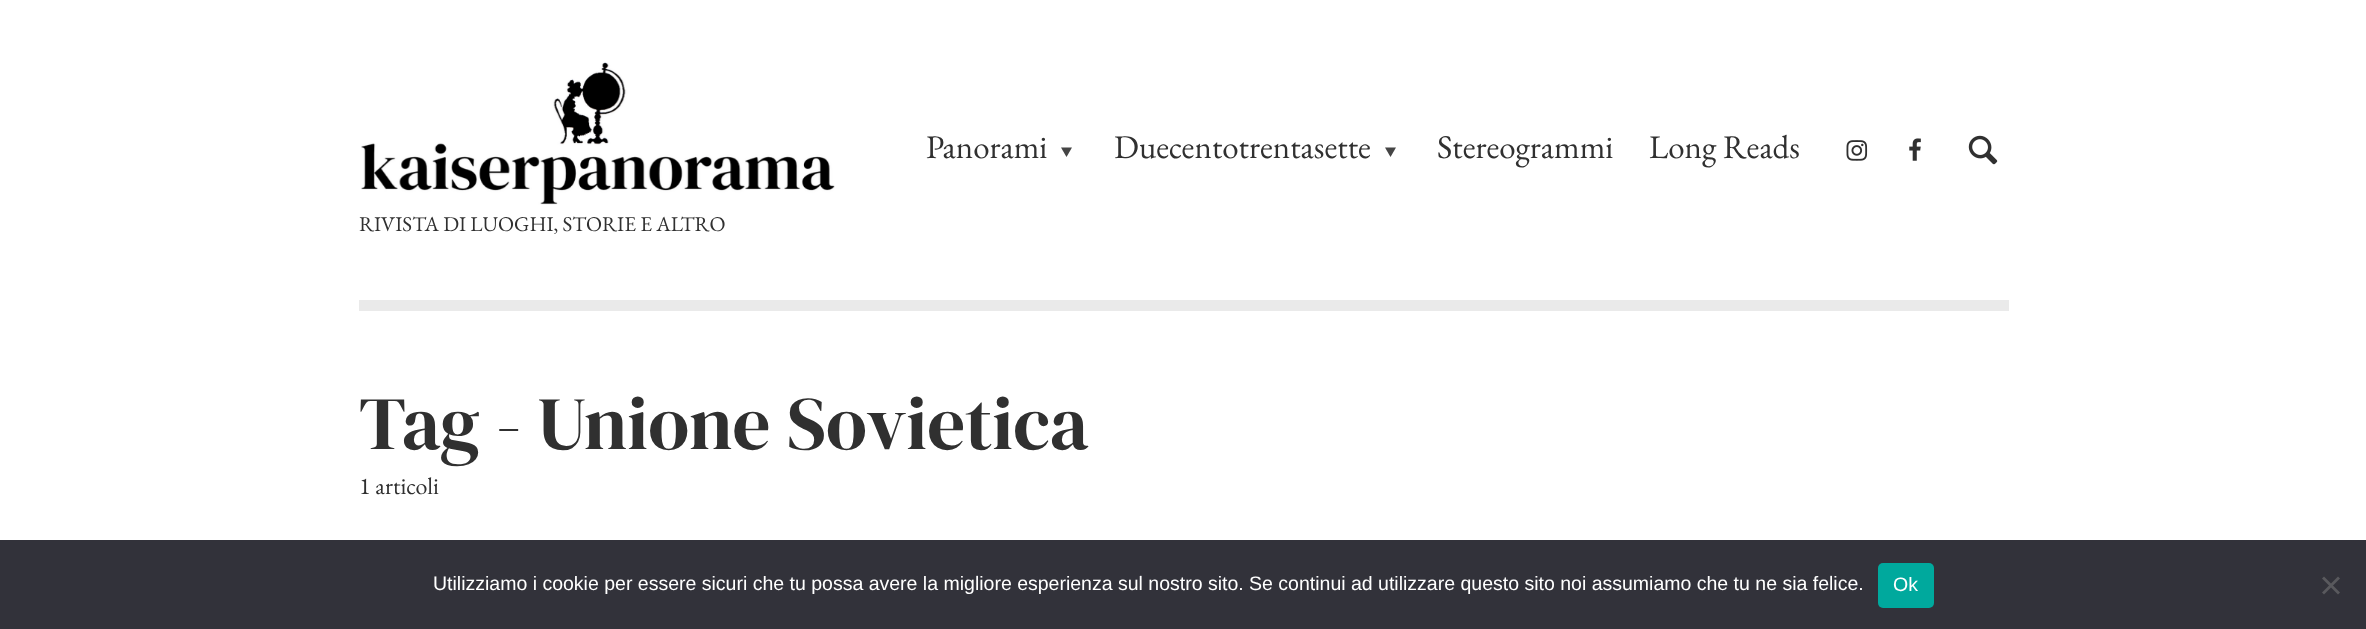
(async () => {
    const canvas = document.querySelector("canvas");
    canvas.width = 2366;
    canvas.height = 629;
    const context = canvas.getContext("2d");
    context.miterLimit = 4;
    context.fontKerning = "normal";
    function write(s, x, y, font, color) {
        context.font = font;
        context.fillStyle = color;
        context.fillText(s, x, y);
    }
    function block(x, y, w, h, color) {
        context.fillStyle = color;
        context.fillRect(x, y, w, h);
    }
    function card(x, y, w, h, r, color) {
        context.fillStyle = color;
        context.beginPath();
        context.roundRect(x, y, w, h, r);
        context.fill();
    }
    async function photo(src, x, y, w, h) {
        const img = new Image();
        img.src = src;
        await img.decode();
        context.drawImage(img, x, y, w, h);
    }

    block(0, 0, 2366, 629, "rgb(255, 255, 255)");
    write("Panorami", 926, 158, "33px EB Garamond", "rgb(48, 48, 48)");
    context.fillStyle = "rgb(69, 69, 69)";
    context.beginPath();
    context.moveTo(1061, 147.5);
    context.lineTo(1072, 147.5);
    context.lineTo(1066.5, 157);
    context.closePath();
    context.fill();
    write("Duecentotrentasette", 1114, 158, "33px EB Garamond", "rgb(48, 48, 48)");
    context.fillStyle = "rgb(69, 69, 69)";
    context.beginPath();
    context.moveTo(1385, 147.5);
    context.lineTo(1396, 147.5);
    context.lineTo(1390.5, 157);
    context.closePath();
    context.fill();
    write("Stereogrammi", 1437, 158, "33px EB Garamond", "rgb(48, 48, 48)");
    write("Long Reads", 1649, 158, "33px EB Garamond", "rgb(48, 48, 48)");
    await photo("media/1.png", 1846, 140, 22, 21);
    await photo("media/2.png", 1909, 138, 12, 23);
    await photo("media/3.png", 1968, 135, 30, 30);
    await photo("media/4.png", 361, 62, 474, 143);
    write("RIVISTA DI LUOGHI, STORIE E ALTRO", 359, 231, "21px EB Garamond", "rgb(48, 48, 48)");
    block(359, 300, 1650, 11, "rgb(234, 234, 234)");
    write("Tag - Unione Sovietica", 359, 449, "75px DM Serif Display", "rgb(48, 48, 48)");
    write("1 articoli", 359, 494, "24px EB Garamond", "rgb(48, 48, 48)");
    block(0, 540, 2366, 89, "rgb(50, 50, 58)");
    write("Utilizziamo i cookie per essere sicuri che tu possa avere la migliore esperienza sul nostro sito. Se continui ad utilizzare questo sito noi assumiamo che tu ne sia felice.", 433, 590, "19.5px Liberation Sans", "rgb(255, 255, 255)");
    card(1878, 563, 56, 45, 5, "rgb(0, 169, 157)");
    write("Ok", 1893, 591, "19.5px Liberation Sans", "rgb(255, 255, 255)");
    context.fillStyle = "rgb(89, 89, 93)";
    context.beginPath();
    context.moveTo(2338, 576.5);
    context.lineTo(2340, 578.5);
    context.lineTo(2324, 594.5);
    context.lineTo(2322, 592.5);
    context.closePath();
    context.fill();
    context.beginPath();
    context.moveTo(2322, 578.5);
    context.lineTo(2324, 576.5);
    context.lineTo(2340, 592.5);
    context.lineTo(2338, 594.5);
    context.closePath();
    context.fill();
})();
